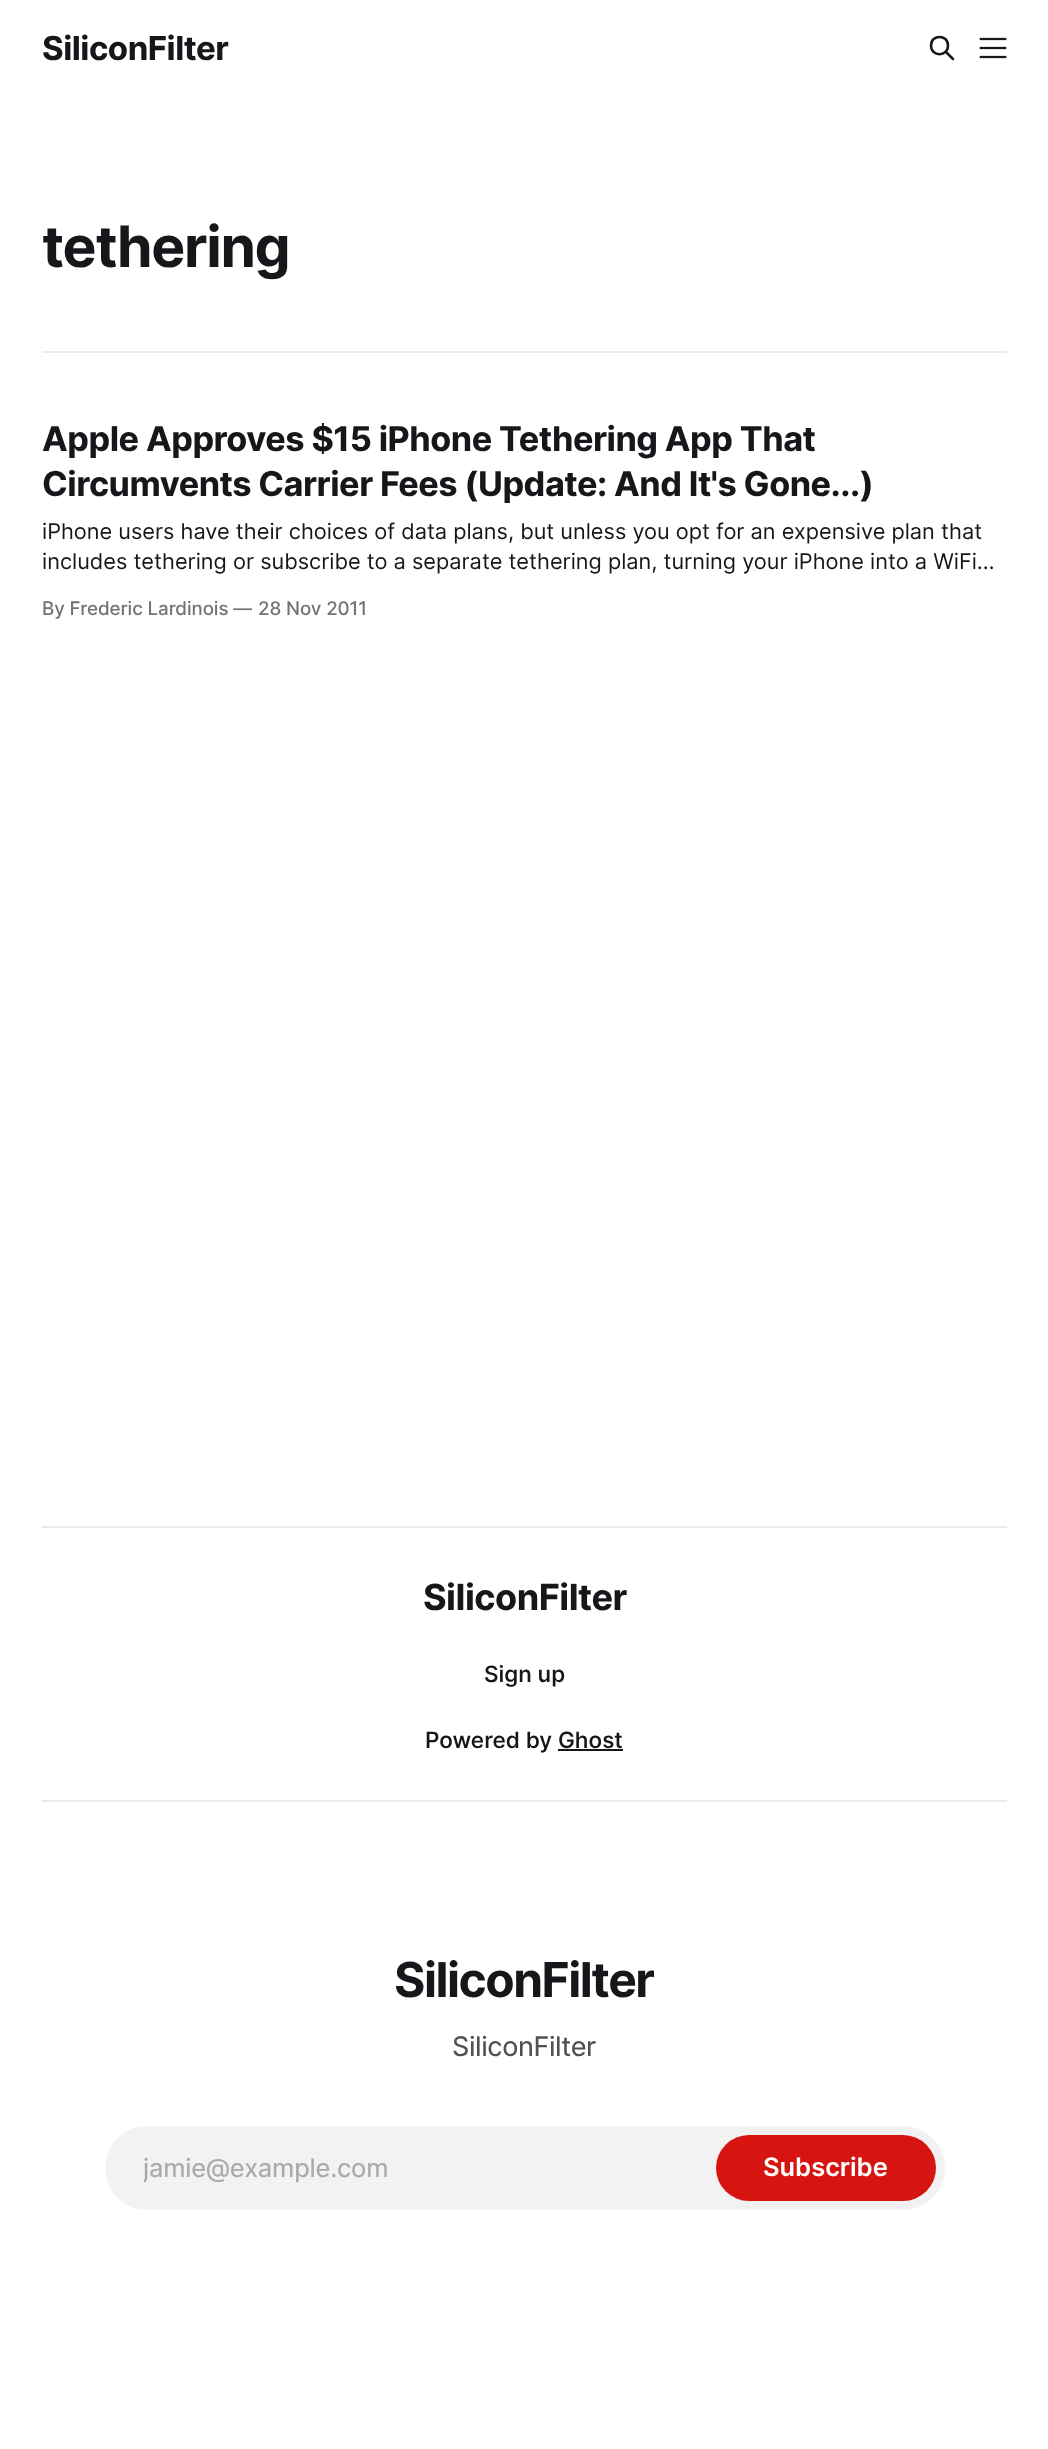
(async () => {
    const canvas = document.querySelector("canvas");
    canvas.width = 1048;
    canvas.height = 2449;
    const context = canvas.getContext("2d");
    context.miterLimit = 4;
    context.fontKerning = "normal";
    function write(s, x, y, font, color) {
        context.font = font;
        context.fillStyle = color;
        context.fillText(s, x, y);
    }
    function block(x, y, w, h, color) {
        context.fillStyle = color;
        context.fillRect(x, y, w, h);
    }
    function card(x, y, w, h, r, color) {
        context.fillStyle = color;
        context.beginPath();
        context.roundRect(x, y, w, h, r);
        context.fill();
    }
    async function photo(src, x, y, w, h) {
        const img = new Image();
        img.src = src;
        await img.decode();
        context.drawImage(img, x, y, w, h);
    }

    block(0, 0, 1048, 2449, "rgb(255, 255, 255)");
    context.letterSpacing = "-0.5px";
    write("SiliconFilter", 42, 60, "bold 33px 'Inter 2'", "rgb(21, 23, 26)");
    context.beginPath();
    context.moveTo(953, 59);
    context.lineTo(946, 52);
    context.moveTo(948, 45.5);
    context.bezierCurveTo(948, 57, 931, 57, 931, 45.5);
    context.bezierCurveTo(931, 34, 948, 34, 948, 45.5);
    context.closePath();
    context.strokeStyle = "rgb(21, 23, 26)";
    context.lineWidth = 2.5;
    context.lineCap = "round";
    context.lineJoin = "round";
    context.stroke();
    await photo("media/1.png", 979, 37, 28, 22);
    block(42, 351, 965, 2, "rgb(235, 235, 235)");
    context.letterSpacing = "-1.25px";
    write("tethering", 42, 267, "bold 57px Inter", "rgb(21, 23, 26)");
    context.letterSpacing = "-0.48px";
    write("Apple Approves $15 iPhone Tethering App That", 42, 451, "bold 34.2px 'Inter 2'", "rgb(21, 23, 26)");
    write("Circumvents Carrier Fees (Update: And It's Gone...)", 42, 496, "bold 34.2px 'Inter 2'", "rgb(21, 23, 26)");
    context.letterSpacing = "0px";
    write("iPhone users have their choices of data plans, but unless you opt for an expensive plan that", 42, 539, "21.75px Inter", "rgb(21, 23, 26)");
    write("includes tethering or subscribe to a separate tethering plan, turning your iPhone into a WiFi…", 42, 569, "21.75px Inter", "rgb(21, 23, 26)");
    context.letterSpacing = "-0.1px";
    write("By Frederic Lardinois —", 42, 615, "500 18.75px 'Inter 2'", "rgb(115, 115, 115)");
    write("28 Nov 2011", 258, 615, "500 18.75px 'Inter 2'", "rgb(115, 115, 115)");
    block(42, 1526, 965, 2, "rgb(235, 235, 235)");
    block(42, 1800, 965, 2, "rgb(235, 235, 235)");
    context.letterSpacing = "-0.5px";
    write("SiliconFilter", 423, 1610, "bold 36px 'Inter 2'", "rgb(21, 23, 26)");
    context.letterSpacing = "0px";
    write("Sign up", 484, 1682, "500 22.5px Inter", "rgb(21, 23, 26)");
    write("Powered by Ghost", 425, 1748, "500 22.5px Inter", "rgb(21, 23, 26)");
    block(558, 1749, 65, 2, "rgb(21, 23, 26)");
    context.letterSpacing = "-1.5px";
    write("SiliconFilter", 394, 1997, "bold 48px Inter", "rgb(21, 23, 26)");
    context.letterSpacing = "-0.4px";
    write("SiliconFilter", 452, 2056, "27px 'Inter 2'", "rgb(80, 81, 83)");
    card(105, 2126, 840, 84, 42, "rgb(242, 242, 242)");
    context.save();
    context.beginPath();
    context.rect(144, 2153, 762, 30);
    context.clip();
    context.letterSpacing = "-0.25px";
    write("jamie@example.com", 143, 2177, "25.5px 'Inter 2'", "rgb(169, 169, 169)");
    context.restore();
    card(716, 2135, 220, 66, 33, "rgb(214, 21, 17)");
    context.letterSpacing = "0px";
    write("Subscribe", 763, 2176, "600 25.5px Inter", "rgb(255, 255, 255)");
})();
